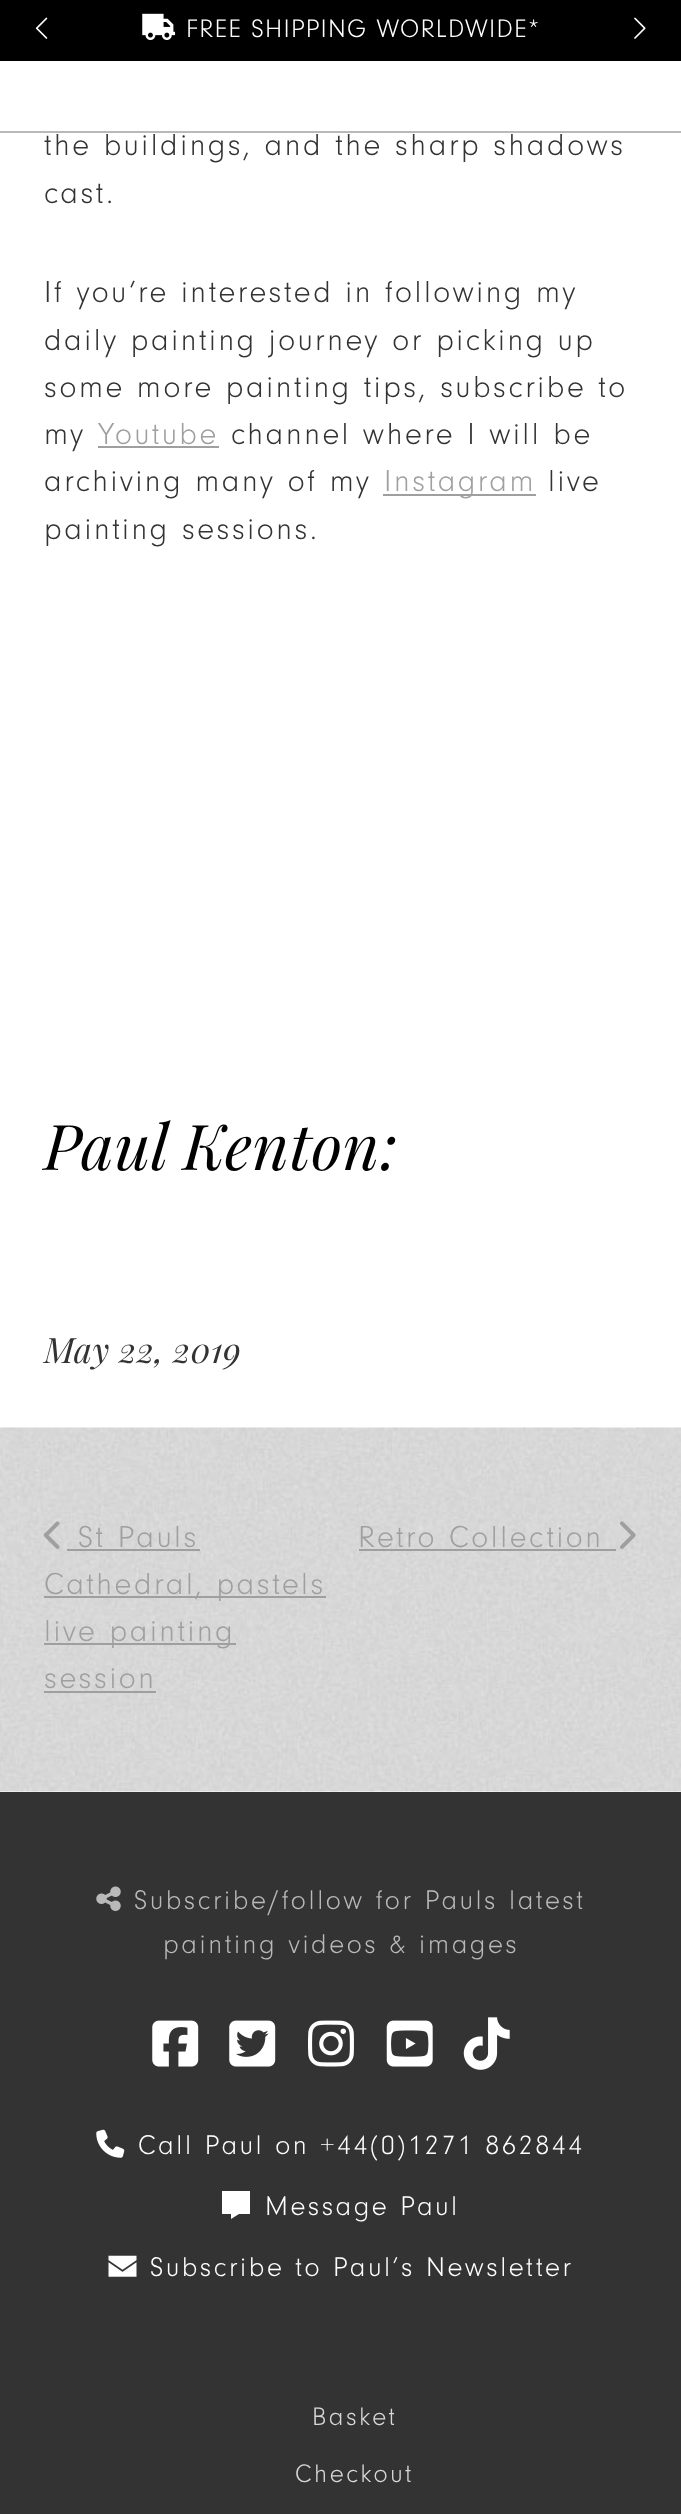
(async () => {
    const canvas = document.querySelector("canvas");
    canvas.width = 681;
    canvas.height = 2514;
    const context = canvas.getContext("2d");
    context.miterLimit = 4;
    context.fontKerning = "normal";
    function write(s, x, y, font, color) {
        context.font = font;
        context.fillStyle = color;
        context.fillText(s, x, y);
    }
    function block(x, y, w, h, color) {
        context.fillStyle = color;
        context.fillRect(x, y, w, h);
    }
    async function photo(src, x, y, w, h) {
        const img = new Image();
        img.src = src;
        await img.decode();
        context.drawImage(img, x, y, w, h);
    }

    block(0, 0, 681, 2514, "rgb(255, 255, 255)");
    block(0, 131, 681, 2, "rgb(185, 185, 185)");
    block(0, 0, 681, 61, "rgb(0, 0, 0)");
    await photo("media/1.png", 35, 17, 13, 22);
    await photo("media/2.png", 142, 13, 34, 27);
    context.letterSpacing = "1.3px";
    write("FREE SHIPPING WORLDWIDE*", 186, 37, "26.25px 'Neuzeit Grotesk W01'", "rgb(255, 255, 255)");
    await photo("media/3.png", 634, 17, 12, 22);
    context.letterSpacing = "2.6px";
    write("the buildings, and the sharp shadows", 44, 155, "31.5px 'Neuzeit Grotesk W01'", "rgb(51, 51, 51)");
    write("cast.", 44, 203, "31.5px 'Neuzeit Grotesk W01'", "rgb(51, 51, 51)");
    write("If you’re interested in following my", 44, 302, "31.5px 'Neuzeit Grotesk W01'", "rgb(51, 51, 51)");
    write("daily painting journey or picking up", 44, 350, "31.5px 'Neuzeit Grotesk W01'", "rgb(51, 51, 51)");
    write("some more painting tips, subscribe to", 44, 397, "31.5px 'Neuzeit Grotesk W01'", "rgb(51, 51, 51)");
    write("my", 44, 444, "31.5px 'Neuzeit Grotesk W01'", "rgb(51, 51, 51)");
    write("Youtube", 98, 444, "31.5px 'Neuzeit Grotesk W01'", "rgb(159, 159, 159)");
    block(98, 446, 121, 2, "rgb(159, 159, 159)");
    write("channel where I will be", 231, 444, "31.5px 'Neuzeit Grotesk W01'", "rgb(51, 51, 51)");
    write("archiving many of my", 44, 491, "31.5px 'Neuzeit Grotesk W01'", "rgb(51, 51, 51)");
    block(383, 494, 153, 2, "rgb(159, 159, 159)");
    write("Instagram", 384, 491, "31.5px 'Neuzeit Grotesk W01'", "rgb(159, 159, 159)");
    write("live", 548, 491, "31.5px 'Neuzeit Grotesk W01'", "rgb(51, 51, 51)");
    write("painting sessions.", 44, 539, "31.5px 'Neuzeit Grotesk W01'", "rgb(51, 51, 51)");
    context.letterSpacing = "0.6px";
    write("Paul Kenton:", 44, 1170, "italic 63px Playfair Display", "rgb(0, 0, 0)");
    context.letterSpacing = "0.3px";
    write("May 22, 2019", 44, 1363, "italic 35px Playfair Display", "rgb(51, 51, 51)");
    await photo("media/4.png", 0, 1427, 681, 365);
    await photo("media/5.png", 43, 1521, 17, 28);
    context.letterSpacing = "2.6px";
    write("St Pauls", 78, 1547, "31.5px 'Neuzeit Grotesk W01'", "rgb(159, 159, 159)");
    block(67, 1549, 133, 2, "rgb(159, 159, 159)");
    block(44, 1596, 282, 2, "rgb(159, 159, 159)");
    write("Cathedral, pastels", 44, 1594, "31.5px 'Neuzeit Grotesk W01'", "rgb(159, 159, 159)");
    block(44, 1643, 192, 2, "rgb(159, 159, 159)");
    write("live painting", 44, 1641, "31.5px 'Neuzeit Grotesk W01'", "rgb(159, 159, 159)");
    write("session", 44, 1688, "31.5px 'Neuzeit Grotesk W01'", "rgb(159, 159, 159)");
    block(44, 1691, 112, 2, "rgb(159, 159, 159)");
    write("Retro Collection", 358, 1547, "31.5px 'Neuzeit Grotesk W01'", "rgb(159, 159, 159)");
    block(359, 1549, 257, 2, "rgb(159, 159, 159)");
    await photo("media/6.png", 620, 1521, 16, 28);
    block(0, 1792, 681, 722, "rgb(51, 51, 51)");
    await photo("media/7.png", 96, 1886, 25, 25);
    write("Subscribe/follow for Pauls latest", 134, 1909, "28px 'Neuzeit Grotesk W01'", "rgb(185, 185, 185)");
    write("painting videos & images", 163, 1953, "28px 'Neuzeit Grotesk W01'", "rgb(185, 185, 185)");
    await photo("media/8.png", 152, 2020, 47, 47);
    await photo("media/9.png", 229, 2020, 47, 47);
    await photo("media/10.png", 308, 2020, 46, 47);
    await photo("media/11.png", 386, 2020, 47, 47);
    await photo("media/12.png", 463, 2017, 47, 53);
    await photo("media/13.png", 96, 2129, 29, 29);
    write("Call Paul on +44(0)1271 862844", 138, 2154, "28px 'Neuzeit Grotesk W01'", "rgb(255, 255, 255)");
    context.beginPath();
    context.moveTo(250, 2191);
    context.lineTo(222, 2191);
    context.lineTo(250, 2191);
    context.lineTo(222, 2191);
    context.lineTo(222, 2214);
    context.lineTo(231, 2214);
    context.lineTo(231, 2219);
    context.lineTo(239, 2214);
    context.lineTo(250, 2214);
    context.closePath();
    context.fill();
    write("Message Paul", 265, 2215, "28px 'Neuzeit Grotesk W01'", "rgb(255, 255, 255)");
    await photo("media/14.png", 108, 2255, 29, 22);
    write("Subscribe to Paul’s Newsletter", 150, 2276, "28px 'Neuzeit Grotesk W01'", "rgb(255, 255, 255)");
    write("Basket", 312, 2425, "26.25px 'Neuzeit Grotesk W01'", "rgb(216, 216, 216)");
    write("Checkout", 295, 2482, "26.25px 'Neuzeit Grotesk W01'", "rgb(216, 216, 216)");
})();
